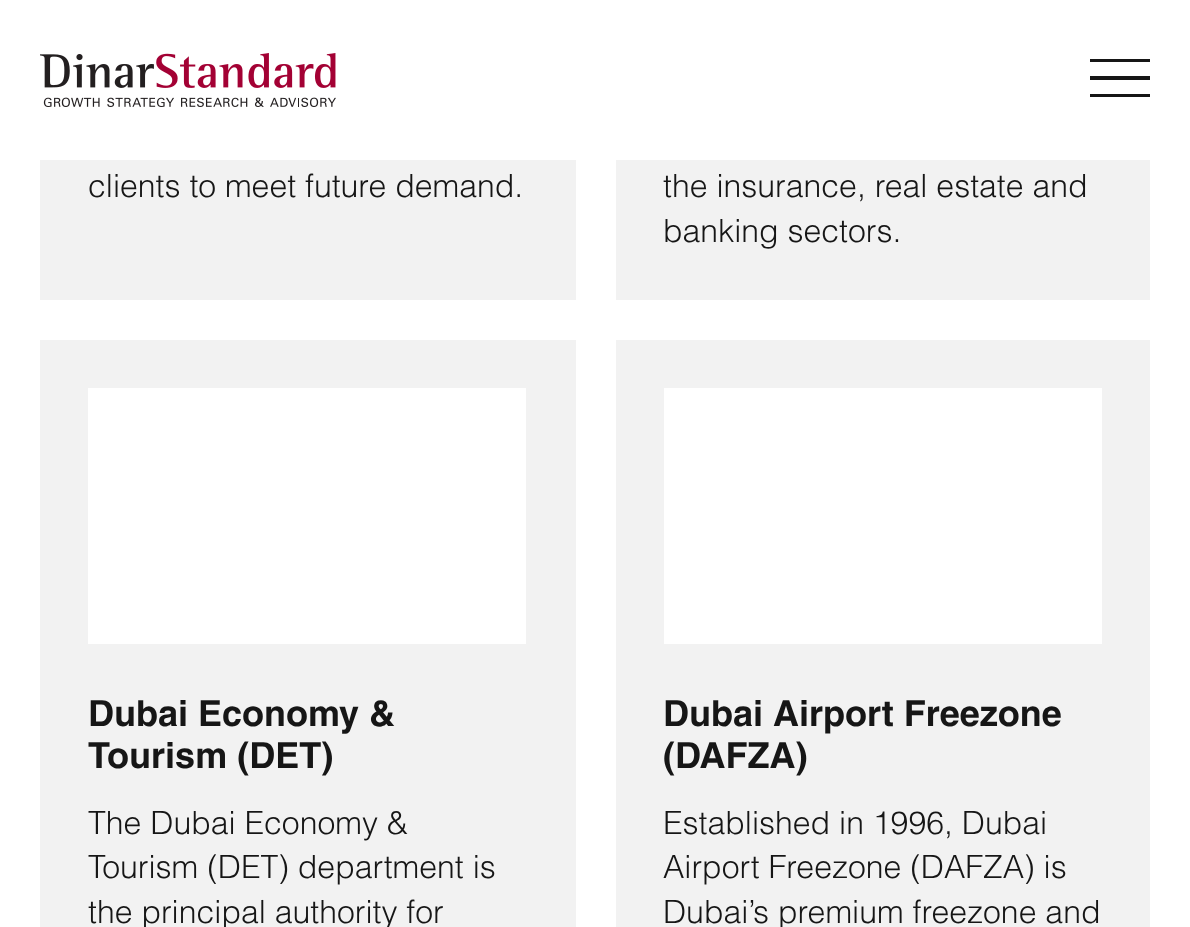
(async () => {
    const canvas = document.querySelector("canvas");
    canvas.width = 1190;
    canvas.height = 927;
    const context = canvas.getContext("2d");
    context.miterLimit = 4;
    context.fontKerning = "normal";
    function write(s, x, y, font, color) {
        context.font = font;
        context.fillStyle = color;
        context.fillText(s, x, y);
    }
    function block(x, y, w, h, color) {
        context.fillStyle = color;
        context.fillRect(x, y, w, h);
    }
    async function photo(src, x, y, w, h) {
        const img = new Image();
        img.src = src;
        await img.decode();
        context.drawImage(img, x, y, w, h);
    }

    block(0, 0, 1190, 927, "rgb(255, 255, 255)");
    await photo("media/1.png", 40, 53, 296, 54);
    block(1090, 59, 60, 3, "rgb(22, 22, 22)");
    block(1090, 76, 60, 4, "rgb(22, 22, 22)");
    block(1090, 94, 60, 3, "rgb(22, 22, 22)");
    block(40, 160, 536, 140, "rgb(242, 242, 242)");
    write("clients to meet future demand.", 88, 197, "300 32px helvetica", "rgb(22, 22, 22)");
    block(616, 160, 534, 140, "rgb(242, 242, 242)");
    write("the insurance, real estate and", 663, 197, "300 32px helvetica", "rgb(22, 22, 22)");
    write("banking sectors.", 663, 242, "300 32px helvetica", "rgb(22, 22, 22)");
    block(40, 340, 536, 587, "rgb(242, 242, 242)");
    block(88, 388, 438, 256, "rgb(255, 255, 255)");
    write("Dubai Economy &", 88, 726, "bold 36px helvetica", "rgb(22, 22, 22)");
    write("Tourism (DET)", 88, 768, "bold 36px helvetica", "rgb(22, 22, 22)");
    write("The Dubai Economy &", 88, 834, "300 32px helvetica", "rgb(22, 22, 22)");
    write("Tourism (DET) department is", 88, 878, "300 32px helvetica", "rgb(22, 22, 22)");
    write("the principal authority for", 88, 923, "300 32px helvetica", "rgb(22, 22, 22)");
    block(616, 340, 534, 587, "rgb(242, 242, 242)");
    block(664, 388, 438, 256, "rgb(255, 255, 255)");
    write("Dubai Airport Freezone", 663, 726, "bold 36px helvetica", "rgb(22, 22, 22)");
    write("(DAFZA)", 663, 768, "bold 36px helvetica", "rgb(22, 22, 22)");
    write("Established in 1996, Dubai", 663, 834, "300 32px helvetica", "rgb(22, 22, 22)");
    write("Airport Freezone (DAFZA) is", 663, 878, "300 32px helvetica", "rgb(22, 22, 22)");
    write("Dubai’s premium freezone and", 663, 923, "300 32px helvetica", "rgb(22, 22, 22)");
})();
